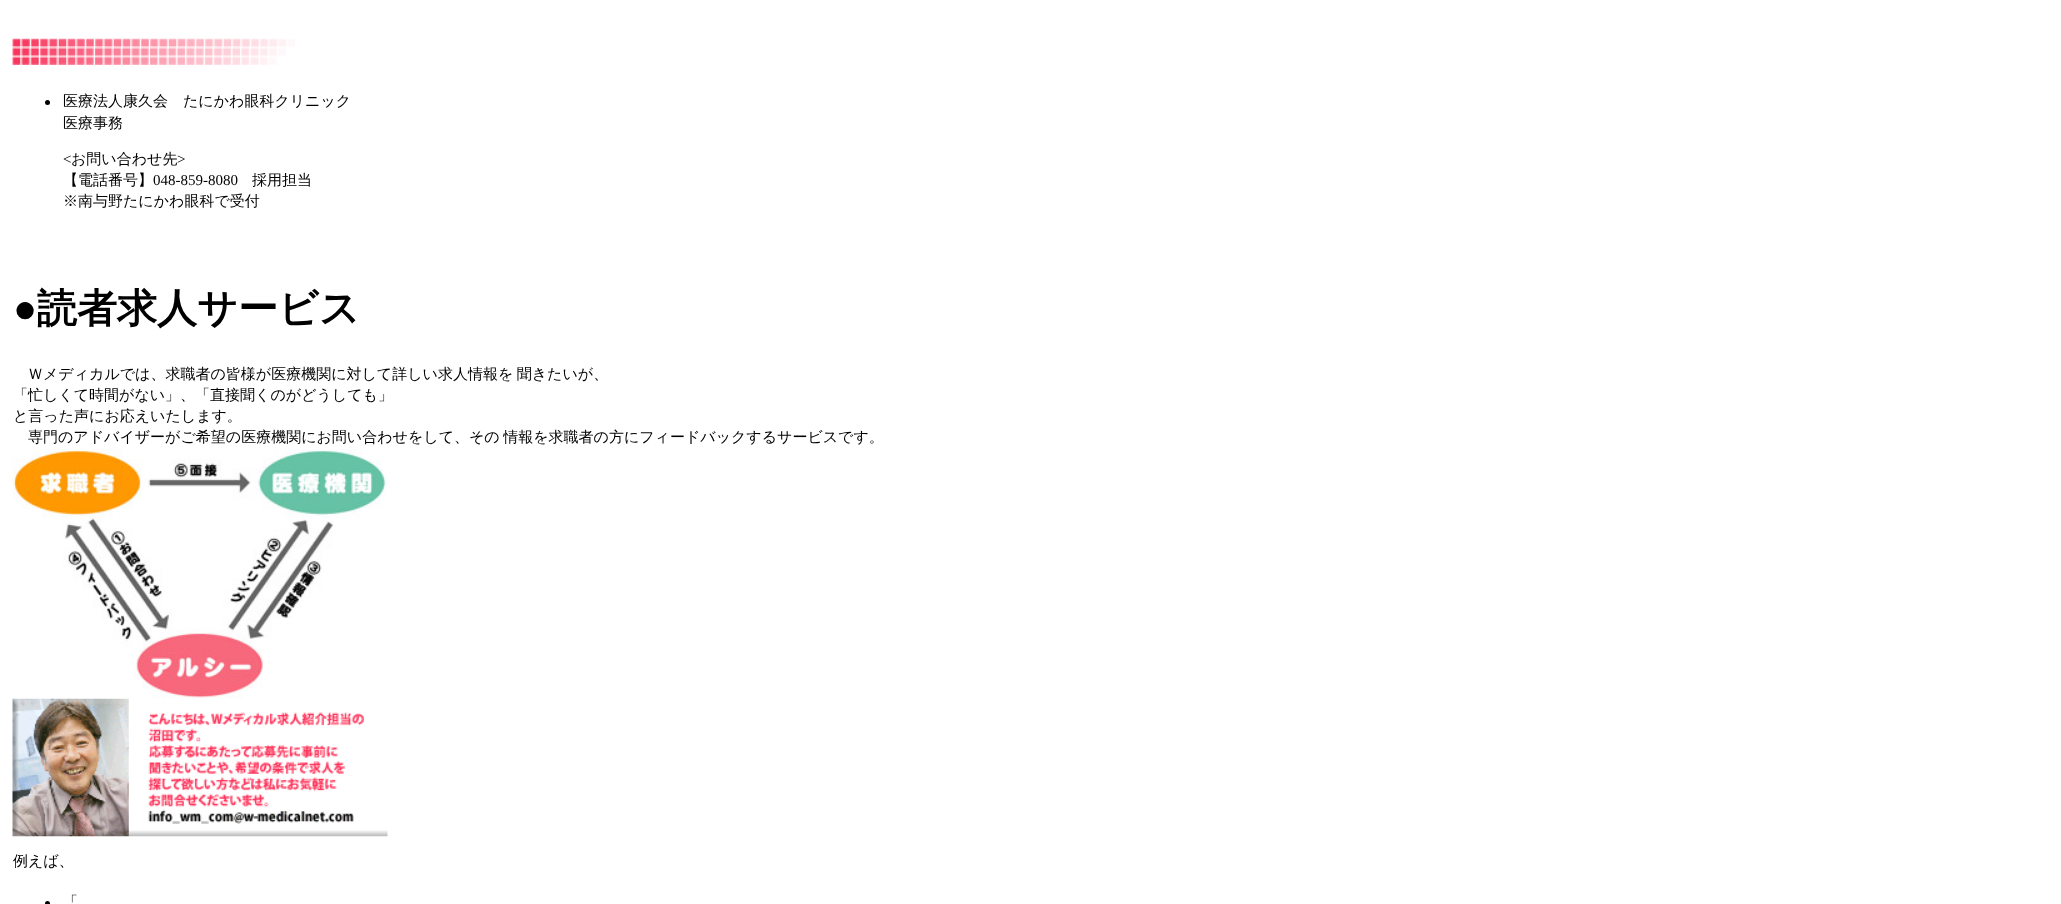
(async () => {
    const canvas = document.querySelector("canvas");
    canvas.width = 2061;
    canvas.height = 904;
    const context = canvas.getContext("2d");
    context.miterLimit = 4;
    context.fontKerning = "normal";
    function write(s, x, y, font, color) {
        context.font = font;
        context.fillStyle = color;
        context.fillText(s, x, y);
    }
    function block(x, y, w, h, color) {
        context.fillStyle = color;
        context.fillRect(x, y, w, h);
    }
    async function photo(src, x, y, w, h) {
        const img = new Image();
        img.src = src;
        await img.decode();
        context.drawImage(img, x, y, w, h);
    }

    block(0, 0, 2061, 904, "rgb(255, 255, 255)");
    await photo("media/1.png", 12, 38, 283, 27);
    context.fillStyle = "rgb(0, 0, 0)";
    context.beginPath();
    context.arc(47.5, 102.5, 2.5, 0, Math.PI * 2);
    context.fill();
    write("医療法人康久会　たにかわ眼科クリニック", 63, 106, "500 15px WenQuanYi Zen Hei", "rgb(0, 0, 0)");
    write("医療事務", 63, 128, "500 15px WenQuanYi Zen Hei", "rgb(0, 0, 0)");
    write("<", 63, 164, "15px Liberation Serif", "rgb(0, 0, 0)");
    write("お問い合わせ先", 71, 164, "500 15px WenQuanYi Zen Hei", "rgb(0, 0, 0)");
    write(">", 177, 164, "15px Liberation Serif", "rgb(0, 0, 0)");
    write("【電話番号】", 63, 185, "500 15px WenQuanYi Zen Hei", "rgb(0, 0, 0)");
    write("048-859-8080", 153, 185, "15px Liberation Serif", "rgb(0, 0, 0)");
    write("採用担当", 252, 185, "500 15px WenQuanYi Zen Hei", "rgb(0, 0, 0)");
    write("※南与野たにかわ眼科で受付", 63, 206, "500 15px WenQuanYi Zen Hei", "rgb(0, 0, 0)");
    write("●", 13, 322, "bold 40px Liberation Serif", "rgb(0, 0, 0)");
    write("読者求人サービス", 37, 322, "bold 40px WenQuanYi Zen Hei", "rgb(0, 0, 0)");
    context.wordSpacing = "-1px";
    write("Ｗメディカルでは、求職者の皆様が医療機関に対して詳しい求人情報を 聞きたいが、", 28, 379, "500 15px WenQuanYi Zen Hei", "rgb(0, 0, 0)");
    context.wordSpacing = "0px";
    write("「忙しくて時間がない」、「直接聞くのがどうしても」", 13, 400, "500 15px WenQuanYi Zen Hei", "rgb(0, 0, 0)");
    write("と言った声にお応えいたします。", 13, 421, "500 15px WenQuanYi Zen Hei", "rgb(0, 0, 0)");
    context.wordSpacing = "-1px";
    write("専門のアドバイザーがご希望の医療機関にお問い合わせをして、その 情報を求職者の方にフィードバックするサービスです。", 28, 442, "500 15px WenQuanYi Zen Hei", "rgb(0, 0, 0)");
    await photo("media/2.png", 12, 449, 374, 250);
    await photo("media/3.png", 12, 698, 376, 139);
    context.wordSpacing = "0px";
    write("例えば、", 13, 866, "500 15px WenQuanYi Zen Hei", "rgb(0, 0, 0)");
    write("「", 63, 907, "500 15px WenQuanYi Zen Hei", "rgb(0, 0, 0)");
    context.beginPath();
    context.arc(47.5, 903.5, 2.5, 0, Math.PI * 2);
    context.fill();
})();
